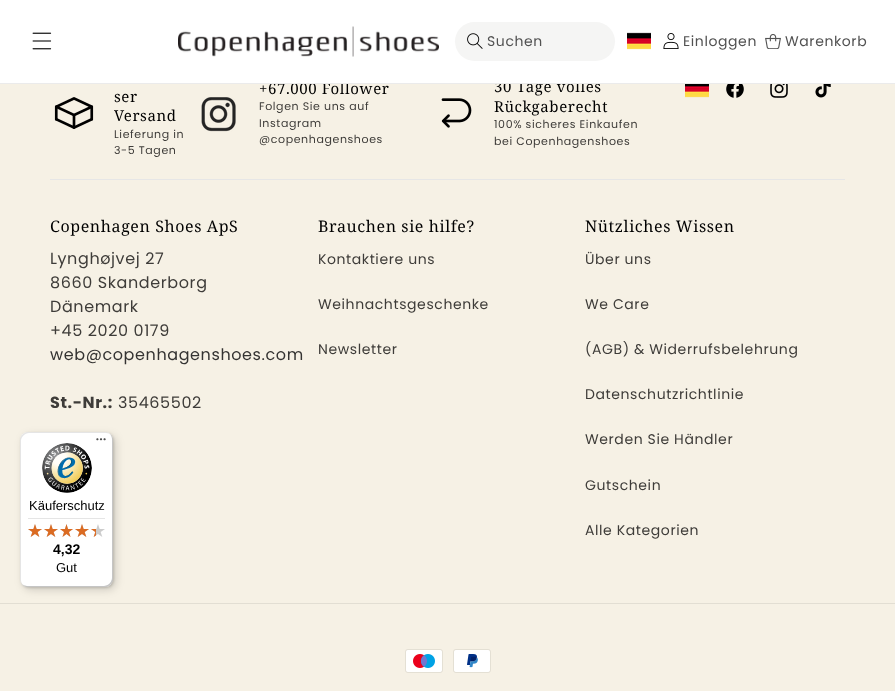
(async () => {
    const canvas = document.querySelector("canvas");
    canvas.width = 895;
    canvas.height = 691;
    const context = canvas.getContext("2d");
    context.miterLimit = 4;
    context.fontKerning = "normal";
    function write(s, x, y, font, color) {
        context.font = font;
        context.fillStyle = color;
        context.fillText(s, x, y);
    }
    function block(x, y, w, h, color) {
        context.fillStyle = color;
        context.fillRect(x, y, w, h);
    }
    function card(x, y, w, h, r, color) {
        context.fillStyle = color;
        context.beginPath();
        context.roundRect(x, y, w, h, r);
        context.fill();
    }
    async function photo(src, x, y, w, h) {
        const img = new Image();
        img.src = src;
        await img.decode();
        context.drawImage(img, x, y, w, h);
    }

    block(0, 0, 895, 691, "rgb(246, 241, 229)");
    context.letterSpacing = "0.6px";
    write("+67.000 Follower", 259, 94, "15px Noto Serif", "rgb(0, 0, 0)");
    write("30 Tage volles", 494, 92, "15px Noto Serif", "rgb(0, 0, 0)");
    block(0, 0, 895, 83, "rgb(255, 255, 255)");
    block(0, 83, 895, 1, "rgb(235, 235, 235)");
    await photo("media/1.png", 32, 32, 20, 18);
    await photo("media/2.png", 178, 26, 261, 31);
    card(455, 22, 160, 39, 19.5, "rgb(245, 245, 244)");
    await photo("media/3.png", 467, 33, 16, 16);
    write("Suchen", 487, 46, "14px Poppins", "rgb(82, 82, 82)");
    await photo("media/4.png", 627, 32, 24, 18);
    await photo("media/5.png", 663, 33, 16, 16);
    write("Einloggen", 683, 46, "14px Poppins", "rgb(82, 82, 82)");
    await photo("media/6.png", 765, 34, 16, 15);
    write("Warenkorb", 785, 46, "14px Poppins", "rgb(82, 82, 82)");
    block(50, 179, 795, 1, "rgb(230, 230, 230)");
    await photo("media/7.png", 54, 97, 40, 32);
    write("ser", 114, 102, "15px Noto Serif", "rgb(0, 0, 0)");
    write("Versand", 114, 121, "15px Noto Serif", "rgb(0, 0, 0)");
    write("Lieferung in", 114, 138, "11px Poppins", "rgb(62, 60, 57)");
    write("3-5 Tagen", 114, 154, "11px Poppins", "rgb(62, 60, 57)");
    await photo("media/8.png", 201, 97, 35, 35);
    write("Folgen Sie uns auf", 259, 110, "11px Poppins", "rgb(62, 60, 57)");
    write("Instagram", 259, 127, "11px Poppins", "rgb(62, 60, 57)");
    write("@copenhagenshoes", 259, 143, "11px Poppins", "rgb(62, 60, 57)");
    await photo("media/9.png", 441, 98, 31, 30);
    write("Rückgaberecht", 494, 112, "15px Noto Serif", "rgb(0, 0, 0)");
    write("100% sicheres Einkaufen", 494, 128, "11px Poppins", "rgb(62, 60, 57)");
    write("bei Copenhagenshoes", 494, 145, "11px Poppins", "rgb(62, 60, 57)");
    await photo("media/10.png", 685, 84, 24, 14);
    await photo("media/11.png", 726, 84, 18, 14);
    await photo("media/12.png", 770, 84, 18, 14);
    await photo("media/13.png", 815, 84, 16, 14);
    write("Copenhagen Shoes ApS", 50, 232, "16px Noto Serif", "rgb(0, 0, 0)");
    write("Lynghøjvej 27", 50, 264, "16px Poppins", "rgb(62, 60, 57)");
    write("8660 Skanderborg", 50, 288, "16px Poppins", "rgb(62, 60, 57)");
    write("Dänemark", 50, 312, "16px Poppins", "rgb(62, 60, 57)");
    write("+45 2020 0179", 50, 336, "16px Poppins", "rgb(62, 60, 57)");
    write("web@copenhagenshoes.com", 50, 360, "16px Poppins", "rgb(52, 51, 50)");
    write("St.-Nr.:", 50, 408, "bold 16px Poppins", "rgb(62, 60, 57)");
    write("35465502", 118, 408, "16px Poppins", "rgb(62, 60, 57)");
    write("Brauchen sie hilfe?", 318, 232, "16px Noto Serif", "rgb(0, 0, 0)");
    write("Kontaktiere uns", 318, 264, "14px Poppins", "rgb(62, 60, 57)");
    write("Weihnachtsgeschenke", 318, 309, "14px Poppins", "rgb(62, 60, 57)");
    write("Newsletter", 318, 354, "14px Poppins", "rgb(62, 60, 57)");
    write("Nützliches Wissen", 585, 232, "16px Noto Serif", "rgb(0, 0, 0)");
    write("Über uns", 585, 264, "14px Poppins", "rgb(62, 60, 57)");
    write("We Care", 585, 309, "14px Poppins", "rgb(62, 60, 57)");
    write("(AGB) & Widerrufsbelehrung", 585, 354, "14px Poppins", "rgb(62, 60, 57)");
    write("Datenschutzrichtlinie", 585, 399, "14px Poppins", "rgb(62, 60, 57)");
    write("Werden Sie Händler", 585, 444, "14px Poppins", "rgb(62, 60, 57)");
    write("Gutschein", 585, 490, "14px Poppins", "rgb(62, 60, 57)");
    write("Alle Kategorien", 585, 535, "14px Poppins", "rgb(62, 60, 57)");
    block(0, 603, 895, 1, "rgb(226, 222, 211)");
    await photo("media/14.png", 405, 649, 38, 24);
    await photo("media/15.png", 453, 649, 38, 24);
    context.fillStyle = "rgba(0, 0, 0, 0.15)";
    context.filter = "blur(4px)";
    context.beginPath();
    context.roundRect(23, 435, 93, 155, 8);
    context.fill();
    context.filter = "none";
    context.filter = "blur(1px)";
    context.beginPath();
    context.roundRect(21, 433, 93, 155, 8);
    context.fill();
    context.filter = "none";
    card(20, 432, 93, 155, 8, "rgb(255, 255, 255)");
    context.fillStyle = "rgba(0, 0, 0, 0.1)";
    context.beginPath();
    context.moveTo(29, 433);
    context.lineTo(106, 433);
    context.bezierCurveTo(108, 433, 110, 434, 112, 436);
    context.bezierCurveTo(110, 434, 108, 432, 105, 432);
    context.lineTo(28, 432);
    context.bezierCurveTo(24, 432, 20, 436, 20, 440);
    context.lineTo(20, 579);
    context.bezierCurveTo(20, 582, 22, 584, 24, 586);
    context.bezierCurveTo(22, 584, 21, 582, 21, 580);
    context.lineTo(21, 441);
    context.bezierCurveTo(21, 437, 25, 433, 29, 433);
    context.closePath();
    context.fill();
    context.fillStyle = "rgba(0, 0, 0, 0.2)";
    context.beginPath();
    context.moveTo(21, 583);
    context.bezierCurveTo(23, 585, 25, 587, 28, 587);
    context.lineTo(105, 587);
    context.bezierCurveTo(109, 587, 113, 583, 113, 579);
    context.lineTo(113, 440);
    context.bezierCurveTo(113, 437, 111, 435, 109, 433);
    context.bezierCurveTo(111, 435, 112, 437, 112, 439);
    context.lineTo(112, 578);
    context.bezierCurveTo(112, 582, 108, 586, 104, 586);
    context.lineTo(27, 586);
    context.bezierCurveTo(25, 586, 23, 585, 21, 583);
    context.closePath();
    context.fill();
    context.fillStyle = "rgba(50, 50, 50, 0.2)";
    context.beginPath();
    context.moveTo(22, 584);
    context.bezierCurveTo(23, 586, 26, 587, 28, 587);
    context.lineTo(105, 587);
    context.bezierCurveTo(109, 587, 113, 583, 113, 579);
    context.lineTo(113, 440);
    context.bezierCurveTo(113, 438, 112, 435, 110, 434);
    context.bezierCurveTo(111, 435, 112, 437, 112, 439);
    context.lineTo(112, 578);
    context.bezierCurveTo(112, 583, 109, 586, 104, 586);
    context.lineTo(27, 586);
    context.bezierCurveTo(25, 586, 23, 585, 22, 584);
    context.closePath();
    context.fill();
    context.fillStyle = "rgba(255, 255, 255, 0.3)";
    context.beginPath();
    context.moveTo(112, 440);
    context.bezierCurveTo(112, 435, 109, 432, 104, 432);
    context.lineTo(105, 432);
    context.bezierCurveTo(109, 432, 113, 436, 113, 440);
    context.lineTo(113, 579);
    context.bezierCurveTo(113, 583, 109, 587, 105, 587);
    context.lineTo(28, 587);
    context.bezierCurveTo(24, 587, 20, 583, 20, 579);
    context.lineTo(20, 578);
    context.bezierCurveTo(20, 583, 23, 586, 28, 586);
    context.lineTo(104, 586);
    context.bezierCurveTo(109, 586, 112, 583, 112, 578);
    context.closePath();
    context.fill();
    await photo("media/16.png", 96, 438, 10, 3);
    await photo("media/17.png", 42, 443, 50, 50);
    context.letterSpacing = "0px";
    write("Käuferschutz", 29, 510, "13px Liberation Sans", "rgb(0, 0, 0)");
    block(28, 518, 77, 1, "rgb(229, 229, 229)");
    await photo("media/18.png", 28, 524, 14, 13);
    await photo("media/18.png", 44, 524, 14, 13);
    await photo("media/19.png", 60, 524, 13, 13);
    await photo("media/18.png", 75, 524, 14, 13);
    await photo("media/18.png", 91, 524, 14, 13);
    await photo("media/20.png", 28, 524, 14, 13);
    await photo("media/20.png", 44, 524, 14, 13);
    await photo("media/21.png", 60, 524, 13, 13);
    await photo("media/20.png", 75, 524, 14, 13);
    await photo("media/22.png", 91, 529, 5, 8);
    write("4,32", 53, 554, "bold 14px Liberation Sans", "rgb(0, 0, 0)");
    write("Gut", 56, 572, "13px Liberation Sans", "rgb(0, 0, 0)");
})();
